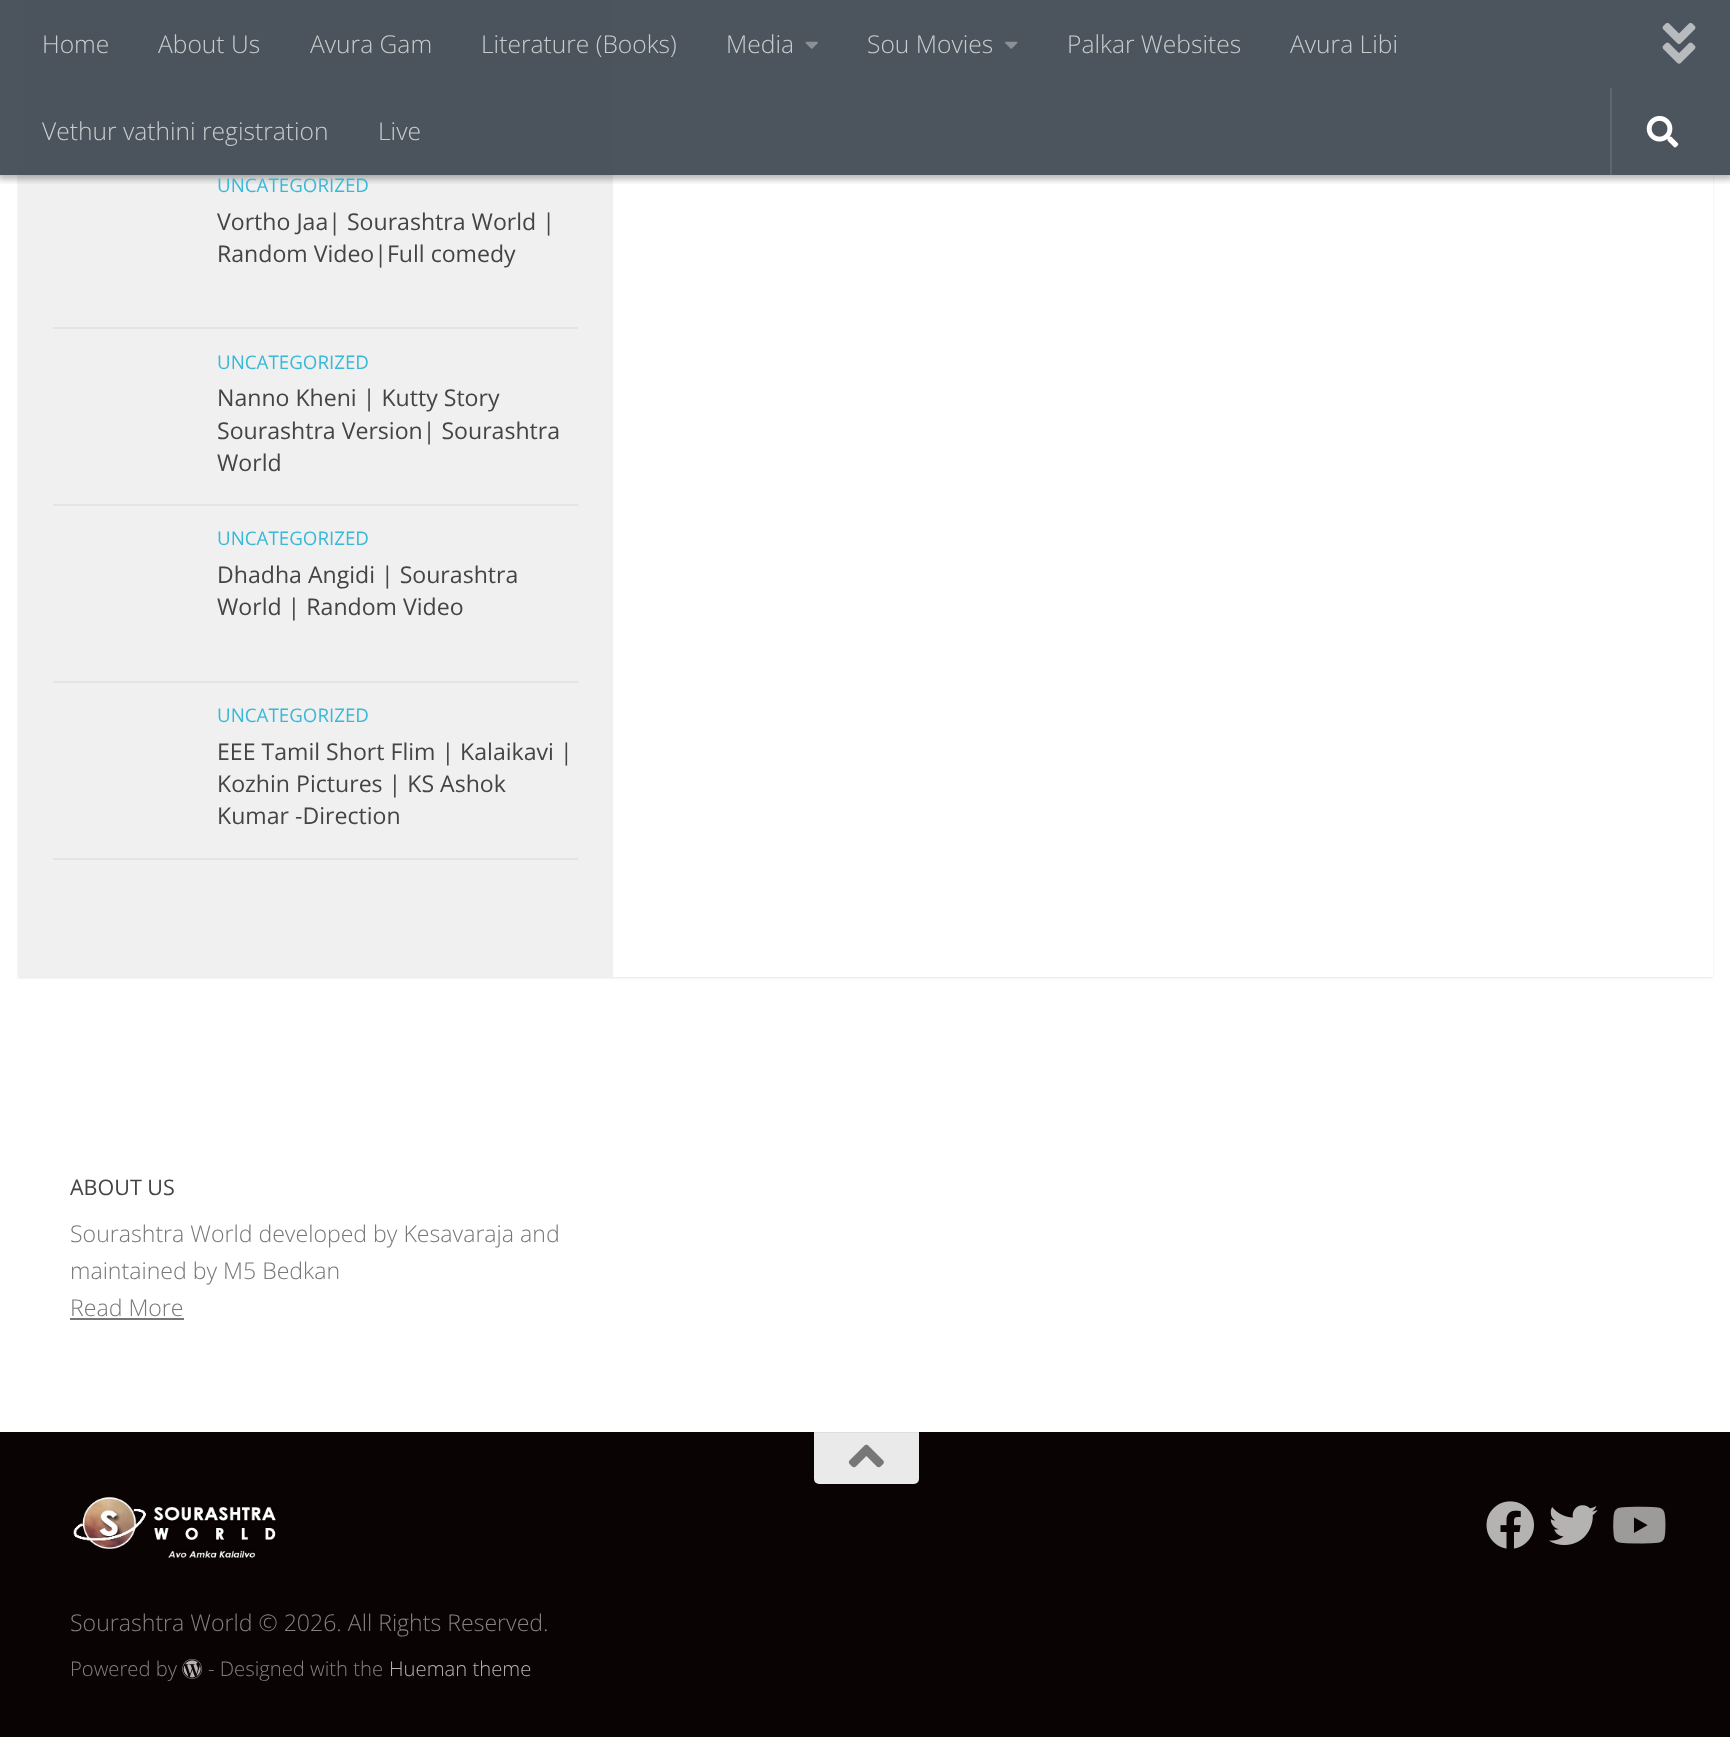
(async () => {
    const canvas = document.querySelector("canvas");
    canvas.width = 1730;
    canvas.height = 1737;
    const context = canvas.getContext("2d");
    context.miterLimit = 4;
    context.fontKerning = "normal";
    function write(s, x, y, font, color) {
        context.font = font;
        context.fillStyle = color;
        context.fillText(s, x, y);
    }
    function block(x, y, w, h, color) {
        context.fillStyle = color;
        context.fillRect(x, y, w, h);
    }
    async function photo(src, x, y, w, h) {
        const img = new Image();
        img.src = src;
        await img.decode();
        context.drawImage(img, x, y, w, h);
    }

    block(0, 0, 1730, 1737, "rgb(255, 255, 255)");
    context.fillStyle = "rgba(0, 0, 0, 0.1)";
    context.filter = "blur(1px)";
    context.beginPath();
    context.rect(18, -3, 1695, 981);
    context.fill();
    context.filter = "none";
    block(613, 0, 1100, 977, "rgb(255, 255, 255)");
    block(18, 0, 595, 977, "rgb(240, 240, 240)");
    block(53, 151, 525, 2, "rgb(228, 228, 228)");
    context.save();
    context.beginPath();
    context.rect(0, 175, 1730, 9);
    context.clip();
    context.fillStyle = "rgba(0, 0, 0, 0.3)";
    context.filter = "blur(3.5px)";
    context.beginPath();
    context.rect(-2, 0, 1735, 179);
    context.fill();
    context.filter = "none";
    context.restore();
    block(0, 0, 1730, 175, "rgba(57, 66, 75, 0.9)");
    write("Home", 42, 53, "300 24.6px Open Sans", "rgb(201, 204, 206)");
    write("About Us", 158, 53, "300 24.6px Open Sans", "rgb(201, 204, 206)");
    write("Avura Gam", 310, 53, "300 24.6px Open Sans", "rgb(201, 204, 206)");
    write("Literature (Books)", 481, 53, "300 24.6px Open Sans", "rgb(201, 204, 206)");
    write("Media", 726, 53, "300 24.6px Open Sans", "rgb(201, 204, 206)");
    await photo("media/1.png", 805, 41, 13, 8);
    write("Sou Movies", 867, 53, "300 24.6px Open Sans", "rgb(201, 204, 206)");
    await photo("media/2.png", 1005, 41, 13, 8);
    write("Palkar Websites", 1067, 53, "300 24.6px Open Sans", "rgb(201, 204, 206)");
    write("Avura Libi", 1290, 53, "300 24.6px Open Sans", "rgb(201, 204, 206)");
    write("Vethur vathini registration", 42, 140, "300 24.6px Open Sans", "rgb(201, 204, 206)");
    write("Live", 378, 140, "300 24.6px Open Sans", "rgb(201, 204, 206)");
    await photo("media/3.png", 1662, 22, 34, 42);
    block(1610, 88, 2, 87, "rgb(95, 102, 109)");
    await photo("media/4.png", 1646, 115, 33, 33);
    block(53, 327, 525, 2, "rgb(228, 228, 228)");
    write("UNCATEGORIZED", 217, 192, "18.75px Open Sans", "rgb(56, 185, 216)");
    write("Vortho Jaa| Sourashtra World |", 217, 230, "23.1px Open Sans", "rgb(68, 68, 68)");
    write("Random Video|Full comedy", 217, 262, "23.1px Open Sans", "rgb(68, 68, 68)");
    block(53, 504, 525, 2, "rgb(228, 228, 228)");
    write("UNCATEGORIZED", 217, 369, "18.75px Open Sans", "rgb(56, 185, 216)");
    write("Nanno Kheni | Kutty Story", 217, 406, "23.1px Open Sans", "rgb(68, 68, 68)");
    write("Sourashtra Version| Sourashtra", 217, 439, "23.1px Open Sans", "rgb(68, 68, 68)");
    write("World", 217, 471, "23.1px Open Sans", "rgb(68, 68, 68)");
    block(53, 681, 525, 2, "rgb(228, 228, 228)");
    write("UNCATEGORIZED", 217, 545, "18.75px Open Sans", "rgb(56, 185, 216)");
    write("Dhadha Angidi | Sourashtra", 217, 583, "23.1px Open Sans", "rgb(68, 68, 68)");
    write("World | Random Video", 217, 615, "23.1px Open Sans", "rgb(68, 68, 68)");
    block(53, 858, 525, 2, "rgb(228, 228, 228)");
    write("UNCATEGORIZED", 217, 722, "18.75px Open Sans", "rgb(56, 185, 216)");
    write("EEE Tamil Short Flim | Kalaikavi |", 217, 760, "23.1px Open Sans", "rgb(68, 68, 68)");
    write("Kozhin Pictures | KS Ashok", 217, 792, "23.1px Open Sans", "rgb(68, 68, 68)");
    write("Kumar -Direction", 217, 824, "23.1px Open Sans", "rgb(68, 68, 68)");
    write("ABOUT US", 70, 1195, "21.5px Open Sans", "rgb(68, 68, 68)");
    write("Sourashtra World developed by Kesavaraja and", 70, 1242, "300 23.1px Open Sans", "rgb(119, 119, 119)");
    write("maintained by M5 Bedkan", 70, 1279, "300 23.1px Open Sans", "rgb(119, 119, 119)");
    write("Read More", 70, 1316, "300 23.1px Open Sans", "rgb(119, 119, 119)");
    block(70, 1318, 114, 2, "rgb(119, 119, 119)");
    block(0, 1432, 1730, 305, "rgb(10, 3, 3)");
    context.fillStyle = "rgb(234, 234, 234)";
    context.beginPath();
    context.roundRect(814, 1432, 105, 52, [0, 0, 5, 5]);
    context.fill();
    block(814, 1432, 105, 1, "rgb(222, 222, 222)");
    await photo("media/5.png", 848, 1444, 36, 24);
    await photo("media/6.png", 1486, 1501, 48, 48);
    await photo("media/7.png", 1549, 1505, 49, 40);
    await photo("media/8.png", 1613, 1506, 53, 38);
    await photo("media/9.png", 73, 1496, 203, 62);
    write("Sourashtra World © 2026. All Rights Reserved.", 70, 1631, "300 23.1px Open Sans", "rgb(133, 129, 129)");
    write("Powered by", 70, 1676, "300 20.25px Open Sans", "rgb(133, 129, 129)");
    await photo("media/10.png", 182, 1659, 20, 20);
    write("- Designed with the", 208, 1676, "300 20.25px Open Sans", "rgb(133, 129, 129)");
    write("Hueman theme", 389, 1676, "300 20.25px Open Sans", "rgb(182, 179, 179)");
})();
